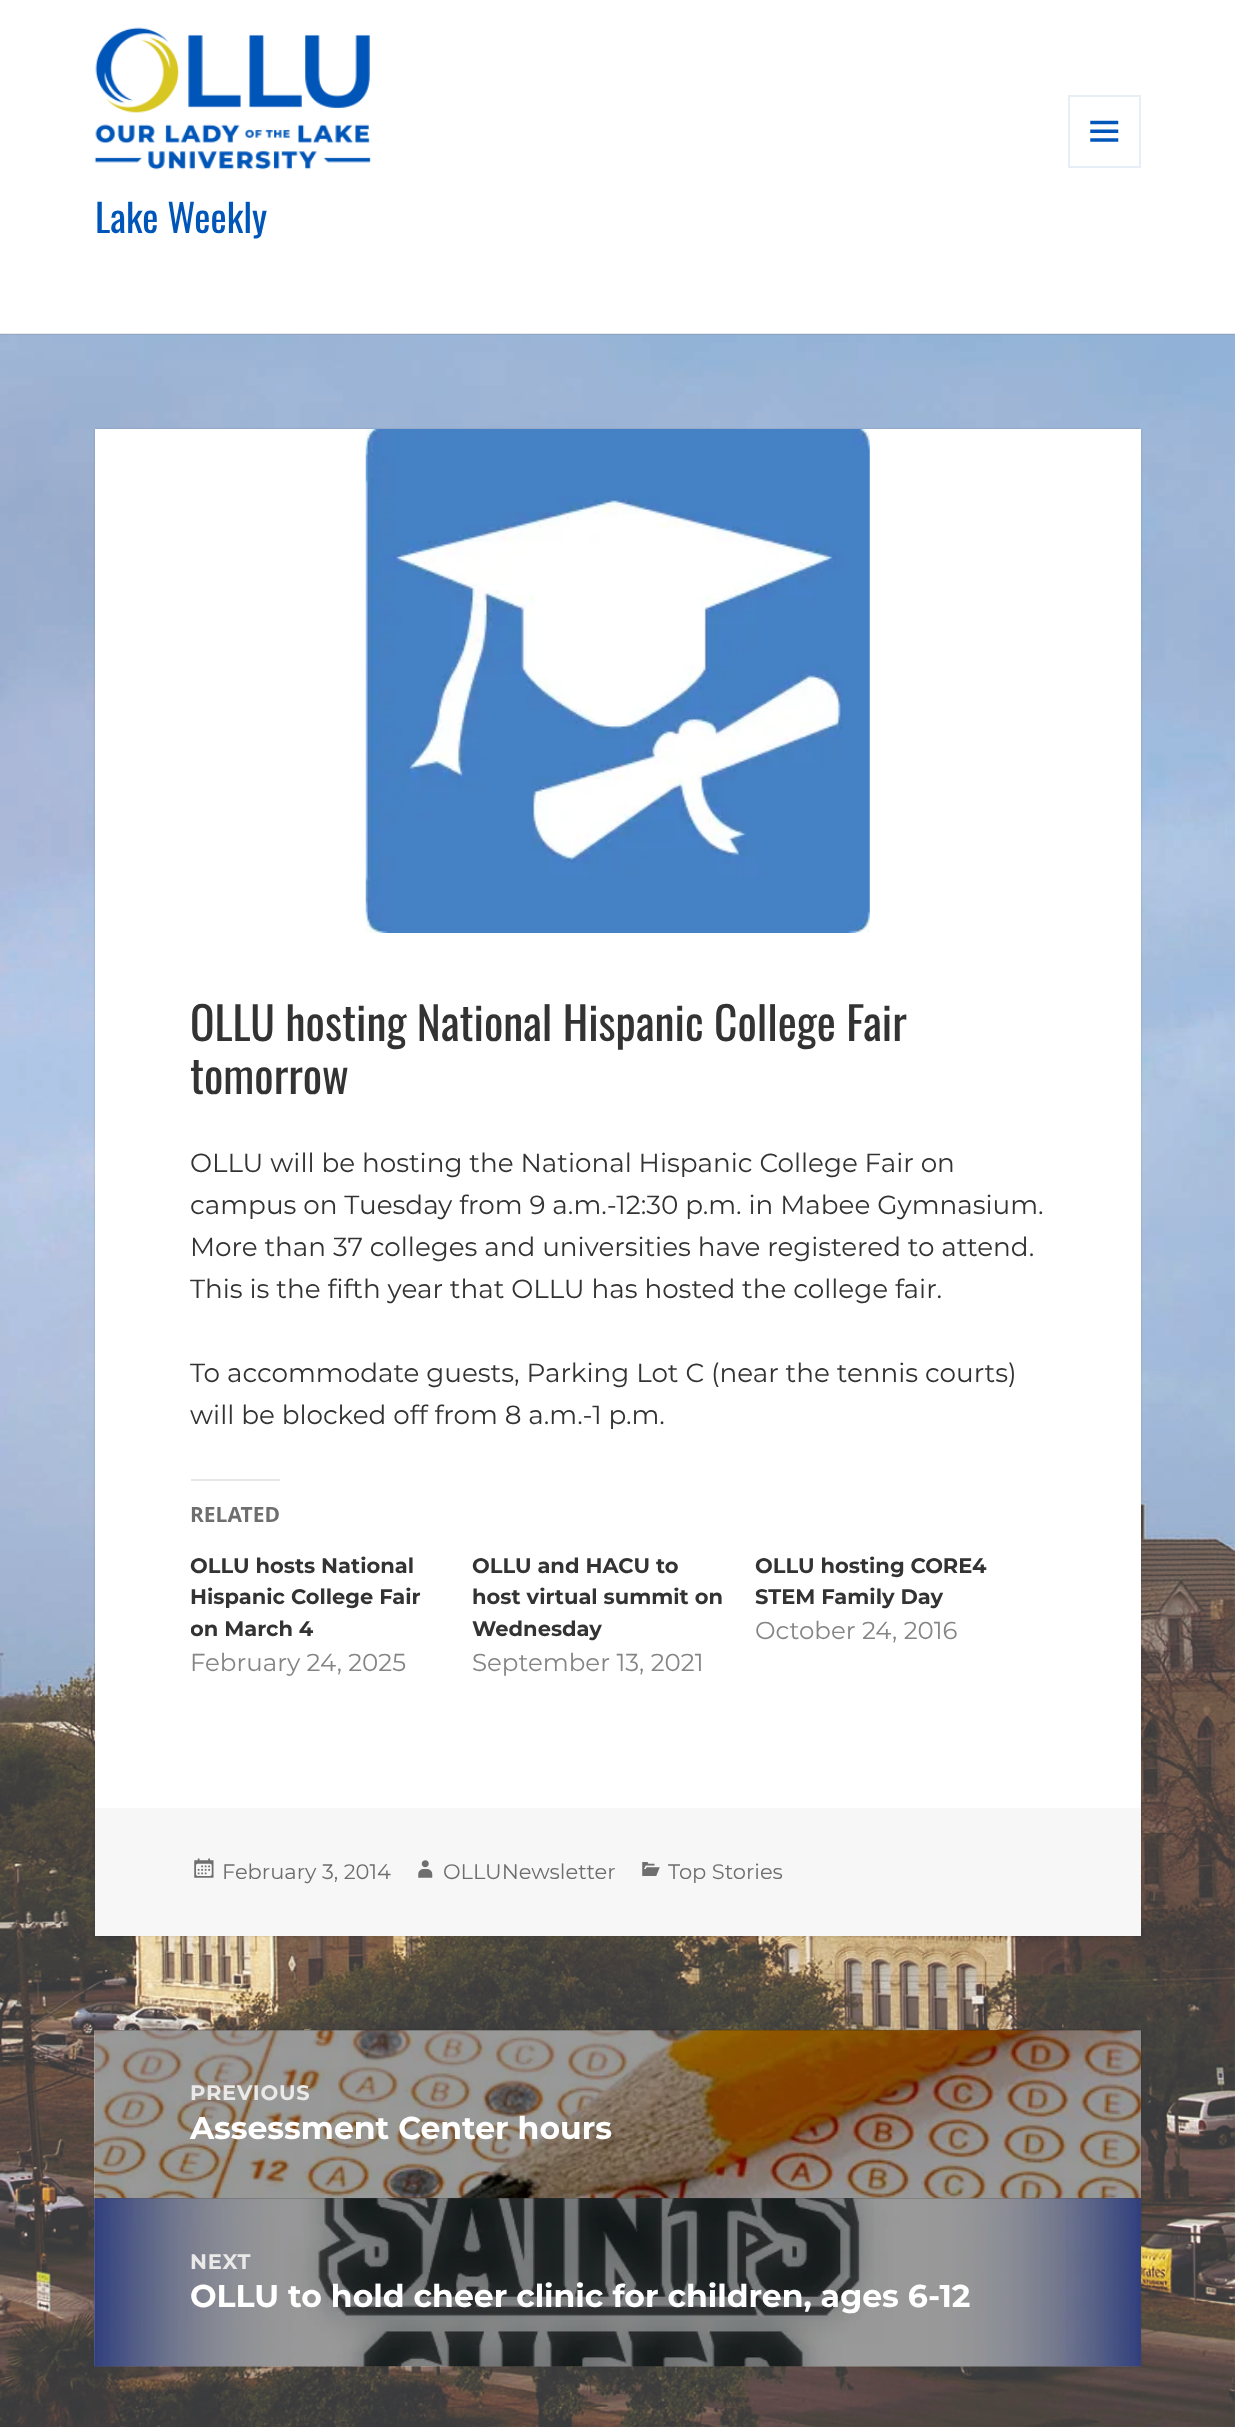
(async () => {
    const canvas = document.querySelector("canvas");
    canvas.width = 1235;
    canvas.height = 2427;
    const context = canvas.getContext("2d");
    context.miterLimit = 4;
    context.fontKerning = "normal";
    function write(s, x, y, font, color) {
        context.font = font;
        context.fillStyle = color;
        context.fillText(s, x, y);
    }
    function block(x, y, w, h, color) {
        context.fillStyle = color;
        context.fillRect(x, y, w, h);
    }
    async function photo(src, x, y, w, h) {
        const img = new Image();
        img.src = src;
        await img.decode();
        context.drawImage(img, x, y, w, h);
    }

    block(0, 0, 1235, 2427, "rgb(255, 255, 255)");
    await photo("media/1.png", 0, 334, 1235, 2093);
    block(0, 333, 1235, 2, "rgba(51, 51, 51, 0.1)");
    await photo("media/2.png", 94, 27, 277, 143);
    context.strokeStyle = "rgb(230, 238, 248)";
    context.lineWidth = 2;
    context.strokeRect(1069, 96, 71, 71);
    await photo("media/3.png", 1090, 120, 29, 22);
    write("Lake Weekly", 95, 233, "38.5px Oswald", "rgb(0, 86, 184)");
    context.fillStyle = "rgba(0, 0, 0, 0.15)";
    context.filter = "blur(1px)";
    context.beginPath();
    context.rect(95, 429, 1046, 1507);
    context.fill();
    context.filter = "none";
    block(95, 429, 1046, 1379, "rgb(255, 255, 255)");
    await photo("media/4.png", 365, 429, 505, 504);
    write("OLLU hosting National Hispanic College Fair", 190, 1041, "45.5px Oswald", "rgb(51, 51, 51)");
    write("tomorrow", 190, 1094, "45.5px Oswald", "rgb(51, 51, 51)");
    write("OLLU will be hosting the National Hispanic College Fair on", 190, 1172, "26.25px Montserrat", "rgb(51, 51, 51)");
    write("campus on Tuesday from 9 a.m.-12:30 p.m. in Mabee Gymnasium.", 190, 1214, "26.25px Montserrat", "rgb(51, 51, 51)");
    write("More than 37 colleges and universities have registered to attend.", 190, 1256, "26.25px Montserrat", "rgb(51, 51, 51)");
    write("This is the fifth year that OLLU has hosted the college fair.", 190, 1298, "26.25px Montserrat", "rgb(51, 51, 51)");
    write("To accommodate guests, Parking Lot C (near the tennis courts)", 190, 1382, "26.25px Montserrat", "rgb(51, 51, 51)");
    write("will be blocked off from 8 a.m.-1 p.m.", 190, 1424, "26.25px Montserrat", "rgb(51, 51, 51)");
    block(191, 1479, 89, 2, "rgb(230, 230, 230)");
    write("RELATED", 190, 1522, "bold 21px Noto Sans", "rgb(110, 110, 110)");
    write("OLLU hosts National", 190, 1573, "bold 21px Montserrat", "rgb(51, 51, 51)");
    write("Hispanic College Fair", 190, 1604, "bold 21px Montserrat", "rgb(51, 51, 51)");
    context.save();
    context.beginPath();
    context.rect(191, 1551, 254, 94);
    context.clip();
    write("on March 4", 190, 1636, "bold 21px Montserrat", "rgb(51, 51, 51)");
    context.restore();
    write("February 24, 2025", 190, 1671, "24.5px Montserrat", "rgb(133, 133, 133)");
    write("OLLU and HACU to", 472, 1573, "bold 21px Montserrat", "rgb(51, 51, 51)");
    write("host virtual summit on", 472, 1604, "bold 21px Montserrat", "rgb(51, 51, 51)");
    write("Wednesday", 472, 1636, "bold 21px Montserrat", "rgb(51, 51, 51)");
    write("September 13, 2021", 472, 1671, "24.5px Montserrat", "rgb(133, 133, 133)");
    write("OLLU hosting CORE4", 755, 1573, "bold 21px Montserrat", "rgb(51, 51, 51)");
    write("STEM Family Day", 755, 1604, "bold 21px Montserrat", "rgb(51, 51, 51)");
    write("October 24, 2016", 755, 1639, "24.5px Montserrat", "rgb(133, 133, 133)");
    block(95, 1808, 1046, 128, "rgb(247, 247, 247)");
    await photo("media/5.png", 194, 1858, 20, 20);
    write("February 3, 2014", 222, 1879, "21px Montserrat", "rgb(110, 110, 110)");
    await photo("media/6.png", 418, 1860, 15, 18);
    write("OLLUNewsletter", 443, 1879, "21px Montserrat", "rgb(110, 110, 110)");
    await photo("media/7.png", 642, 1862, 18, 14);
    write("Top Stories", 668, 1879, "21px Montserrat", "rgb(110, 110, 110)");
    context.fillStyle = "rgba(0, 0, 0, 0.15)";
    context.filter = "blur(1px)";
    context.beginPath();
    context.rect(95, 2030, 1046, 336);
    context.fill();
    context.filter = "none";
    await photo("media/8.png", 94, 2030, 1047, 169);
    block(95, 2030, 1046, 168, "rgba(0, 0, 0, 0.4)");
    context.letterSpacing = "0.75px";
    write("PREVIOUS", 190, 2100, "bold 21px Montserrat", "rgb(234, 233, 232)");
    context.letterSpacing = "0px";
    write("Assessment Center hours", 190, 2139, "bold 31.5px Montserrat", "rgb(255, 255, 255)");
    await photo("media/9.png", 94, 2198, 1047, 169);
    block(95, 2198, 1046, 168, "rgba(0, 0, 0, 0.4)");
    context.letterSpacing = "0.75px";
    write("NEXT", 190, 2269, "bold 21px Montserrat", "rgb(234, 233, 232)");
    context.letterSpacing = "0px";
    write("OLLU to hold cheer clinic for children, ages 6-12", 190, 2307, "bold 31.5px Montserrat", "rgb(255, 255, 255)");
})();
